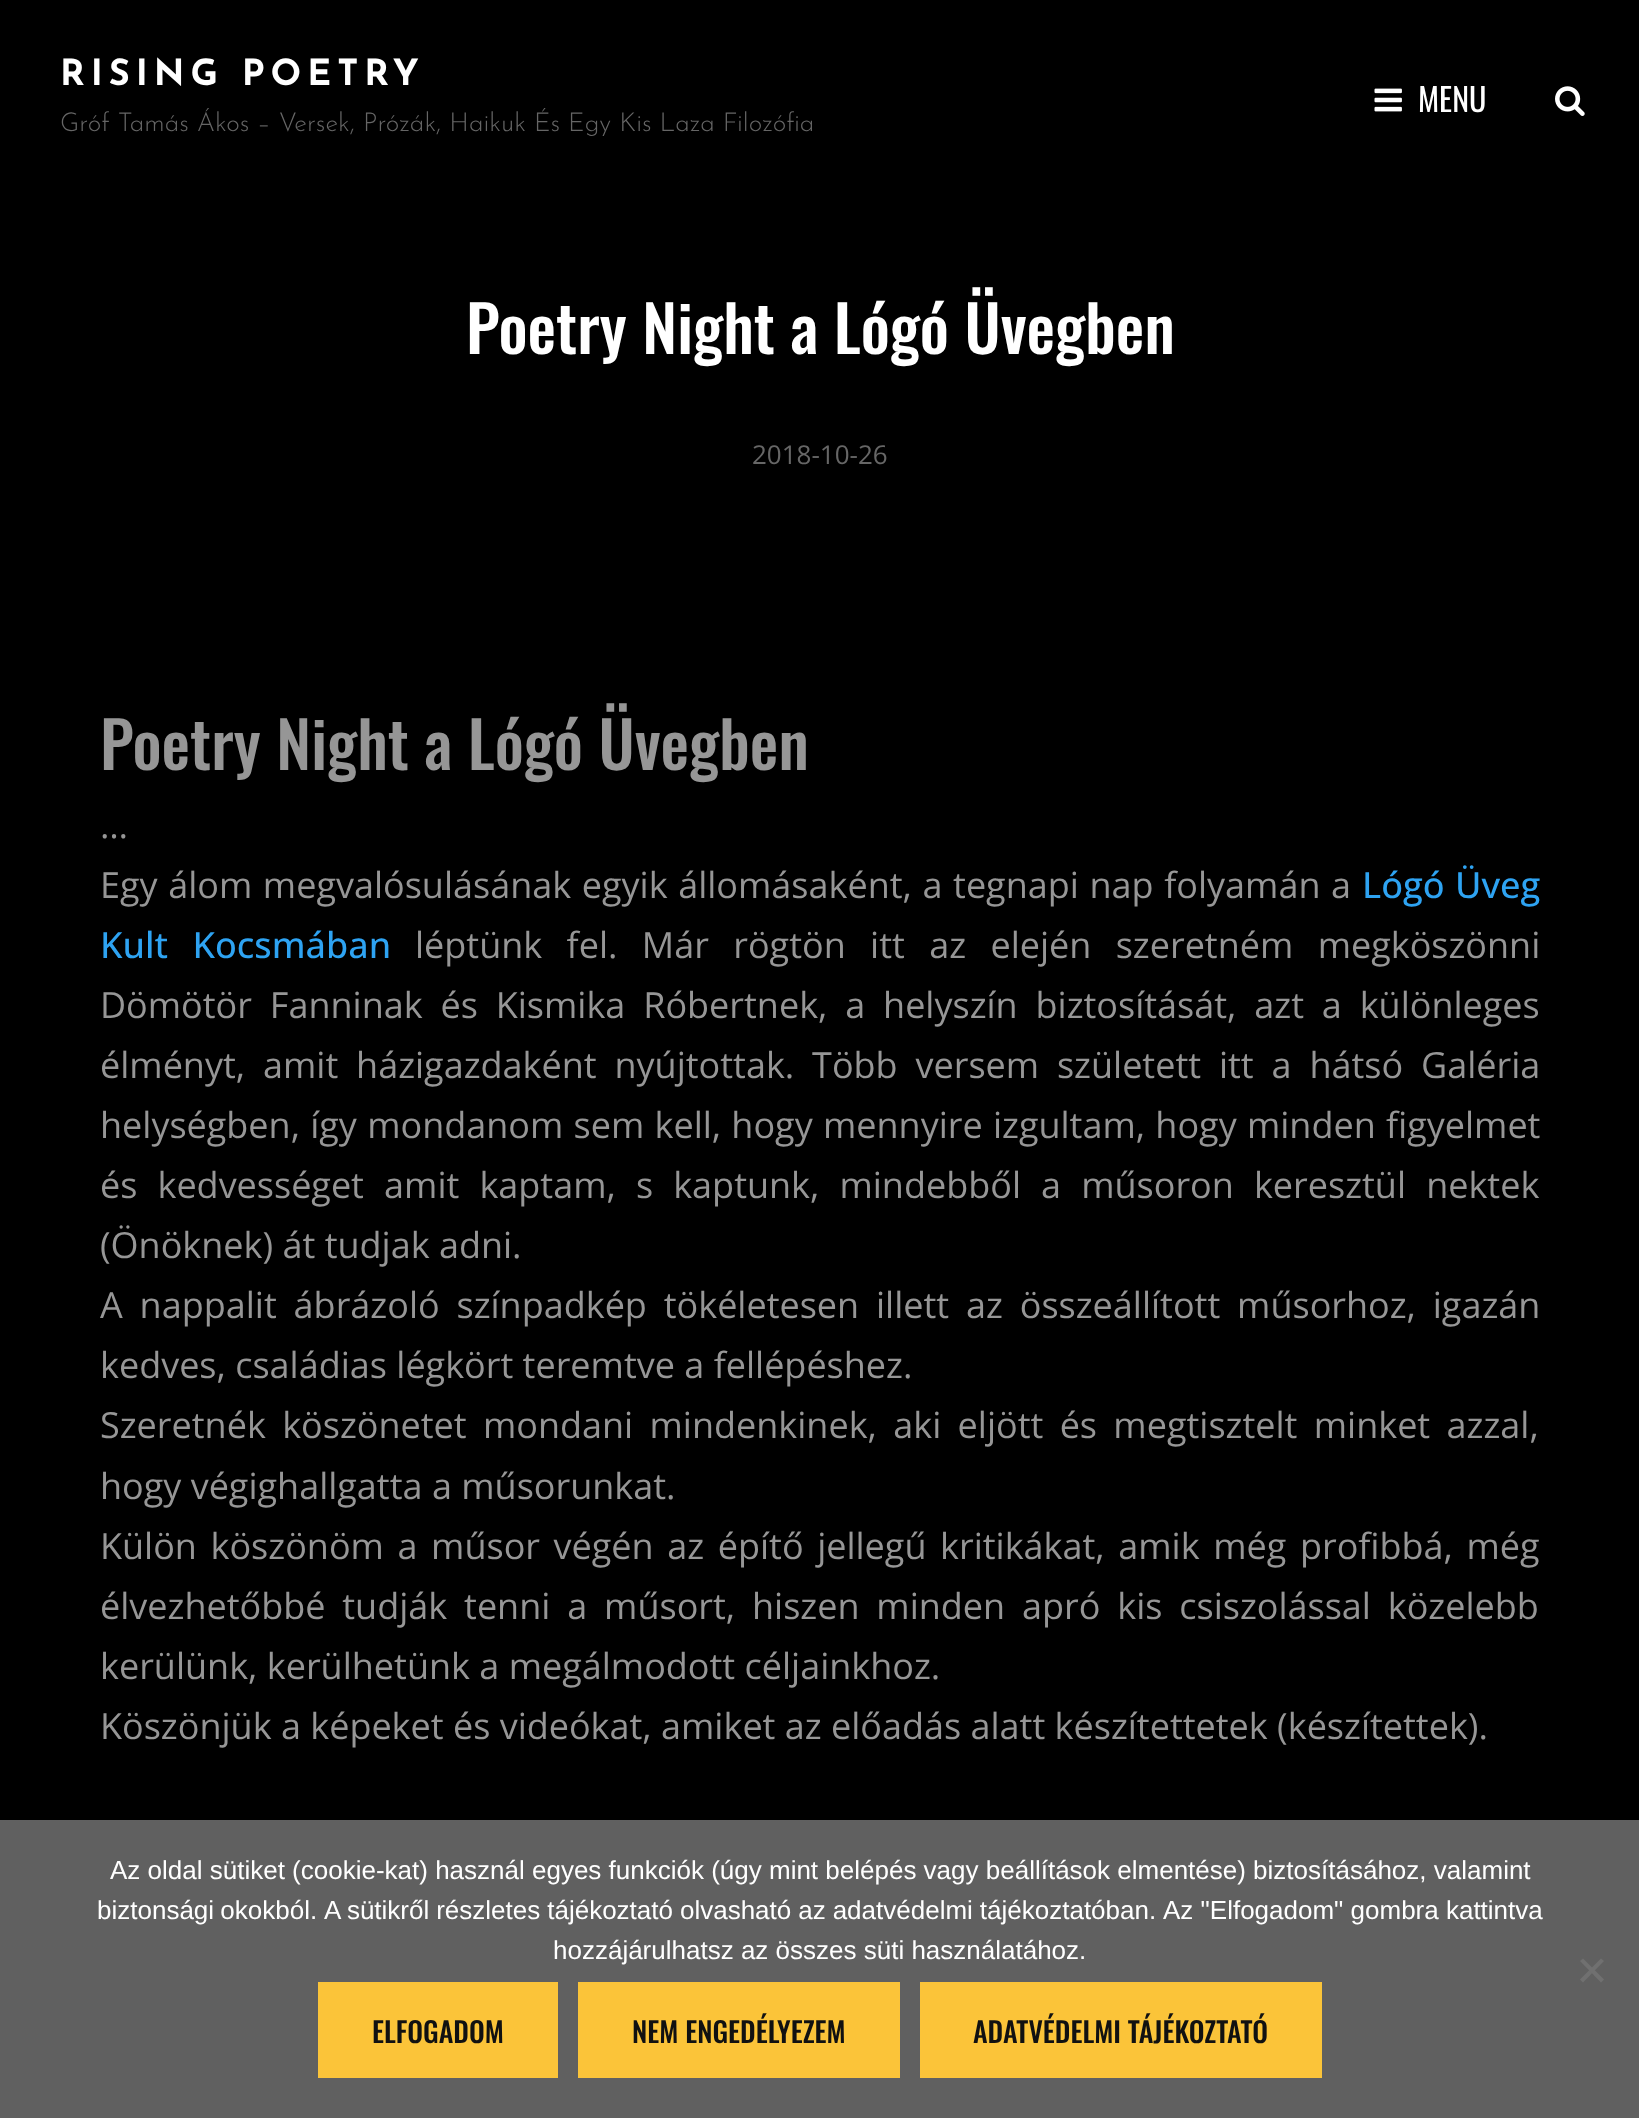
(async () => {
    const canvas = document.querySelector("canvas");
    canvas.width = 1639;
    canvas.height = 2118;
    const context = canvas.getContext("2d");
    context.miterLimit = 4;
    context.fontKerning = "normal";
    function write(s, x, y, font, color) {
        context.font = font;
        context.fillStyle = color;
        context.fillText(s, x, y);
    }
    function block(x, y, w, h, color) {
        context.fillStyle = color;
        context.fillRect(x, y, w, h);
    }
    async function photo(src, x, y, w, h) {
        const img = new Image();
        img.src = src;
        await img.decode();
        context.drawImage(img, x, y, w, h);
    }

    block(0, 0, 1639, 2118, "rgb(0, 0, 0)");
    context.letterSpacing = "6px";
    write("RISING POETRY", 60, 85, "bold 36px Josefin Sans", "rgb(255, 255, 255)");
    context.letterSpacing = "0px";
    write("Gróf Tamás Ákos – Versek, Prózák, Haikuk És Egy Kis Laza Filozófia", 60, 131, "300 26px Josefin Sans", "rgb(102, 102, 102)");
    await photo("media/1.png", 1374, 88, 28, 24);
    write("MENU", 1418, 112, "32px Oswald", "rgb(255, 255, 255)");
    await photo("media/2.png", 1555, 86, 30, 30);
    write("Poetry Night a Lógó Üvegben", 466, 354, "500 64px Oswald", "rgb(255, 255, 255)");
    write("2018-10-26", 752, 464, "26px Open Sans", "rgb(102, 102, 102)");
    write("Poetry Night a Lógó Üvegben", 100, 770, "500 64px Oswald", "rgb(150, 150, 150)");
    write("…", 100, 838, "36px Open Sans", "rgb(150, 150, 150)");
    context.wordSpacing = "1.25px";
    write("Egy álom megvalósulásának egyik állomásaként, a tegnapi nap folyamán a", 100, 898, "36px Open Sans", "rgb(150, 150, 150)");
    context.wordSpacing = "1px";
    write("Lógó Üveg", 1362, 898, "500 36px Open Sans", "rgb(46, 163, 242)");
    context.wordSpacing = "15px";
    write("Kult Kocsmában", 100, 958, "500 36px Open Sans", "rgb(46, 163, 242)");
    write("léptünk fel. Már rögtön itt az elején szeretném megköszönni", 415, 958, "36px Open Sans", "rgb(150, 150, 150)");
    context.wordSpacing = "8.5px";
    write("Dömötör Fanninak és Kismika Róbertnek, a helyszín biztosítását, azt a különleges", 100, 1018, "36px Open Sans", "rgb(150, 150, 150)");
    write("élményt, amit házigazdaként nyújtottak. Több versem született itt a hátsó Galéria", 100, 1078, "36px Open Sans", "rgb(150, 150, 150)");
    context.wordSpacing = "0.9px";
    write("helységben, így mondanom sem kell, hogy mennyire izgultam, hogy minden figyelmet", 100, 1138, "36px Open Sans", "rgb(150, 150, 150)");
    context.wordSpacing = "10.75px";
    write("és kedvességet amit kaptam, s kaptunk, mindebből a műsoron keresztül nektek", 100, 1198, "36px Open Sans", "rgb(150, 150, 150)");
    context.wordSpacing = "0px";
    write("(Önöknek) át tudjak adni.", 100, 1258, "36px Open Sans", "rgb(150, 150, 150)");
    context.wordSpacing = "7.5px";
    write("A nappalit ábrázoló színpadkép tökéletesen illett az összeállított műsorhoz, igazán", 100, 1318, "36px Open Sans", "rgb(150, 150, 150)");
    context.wordSpacing = "0px";
    write("kedves, családias légkört teremtve a fellépéshez.", 100, 1378, "36px Open Sans", "rgb(150, 150, 150)");
    context.wordSpacing = "7px";
    write("Szeretnék köszönetet mondani mindenkinek, aki eljött és megtisztelt minket azzal,", 100, 1438, "36px Open Sans", "rgb(150, 150, 150)");
    context.wordSpacing = "0px";
    write("hogy végighallgatta a műsorunkat.", 100, 1499, "36px Open Sans", "rgb(150, 150, 150)");
    context.wordSpacing = "4.25px";
    write("Külön köszönöm a műsor végén az építő jellegű kritikákat, amik még profibbá, még", 100, 1559, "36px Open Sans", "rgb(150, 150, 150)");
    context.wordSpacing = "7.5px";
    write("élvezhetőbbé tudják tenni a műsort, hiszen minden apró kis csiszolással közelebb", 100, 1619, "36px Open Sans", "rgb(150, 150, 150)");
    context.wordSpacing = "0px";
    write("kerülünk, kerülhetünk a megálmodott céljainkhoz.", 100, 1679, "36px Open Sans", "rgb(150, 150, 150)");
    write("Köszönjük a képeket és videókat, amiket az előadás alatt készítettetek (készítettek).", 100, 1739, "36px Open Sans", "rgb(150, 150, 150)");
    block(0, 1820, 1639, 298, "rgb(96, 96, 96)");
    write("Az oldal sütiket (cookie-kat) használ egyes funkciók (úgy mint belépés vagy beállítások elmentése) biztosításához, valamint", 110, 1879, "26px Liberation Sans", "rgb(255, 255, 255)");
    context.wordSpacing = "-1px";
    write("biztonsági okokból.", 97, 1919, "26px Liberation Sans", "rgb(255, 255, 255)");
    context.wordSpacing = "-0.25px";
    write("A sütikről részletes tájékoztató olvasható az adatvédelmi tájékoztatóban.", 324, 1919, "26px Liberation Sans", "rgb(255, 255, 255)");
    context.wordSpacing = "0px";
    write("Az \"Elfogadom\" gombra kattintva", 1163, 1919, "26px Liberation Sans", "rgb(255, 255, 255)");
    write("hozzájárulhatsz az összes süti használatához.", 553, 1959, "26px Liberation Sans", "rgb(255, 255, 255)");
    context.fillStyle = "rgb(112, 112, 112)";
    context.beginPath();
    context.moveTo(1601, 1958.5);
    context.lineTo(1604, 1961);
    context.lineTo(1583, 1982.5);
    context.lineTo(1580, 1979.5);
    context.closePath();
    context.fill();
    context.beginPath();
    context.moveTo(1580, 1961);
    context.lineTo(1583, 1958.5);
    context.lineTo(1604, 1979.5);
    context.lineTo(1601, 1982.5);
    context.closePath();
    context.fill();
    block(318, 1982, 240, 96, "rgb(251, 196, 57)");
    write("ELFOGADOM", 372, 2043, "500 28px Oswald", "rgb(17, 17, 17)");
    block(578, 1982, 322, 96, "rgb(251, 196, 57)");
    write("NEM ENGEDÉLYEZEM", 632, 2043, "500 28px Oswald", "rgb(17, 17, 17)");
    block(920, 1982, 402, 96, "rgb(251, 196, 57)");
    write("ADATVÉDELMI TÁJÉKOZTATÓ", 973, 2043, "500 28px Oswald", "rgb(17, 17, 17)");
})();
